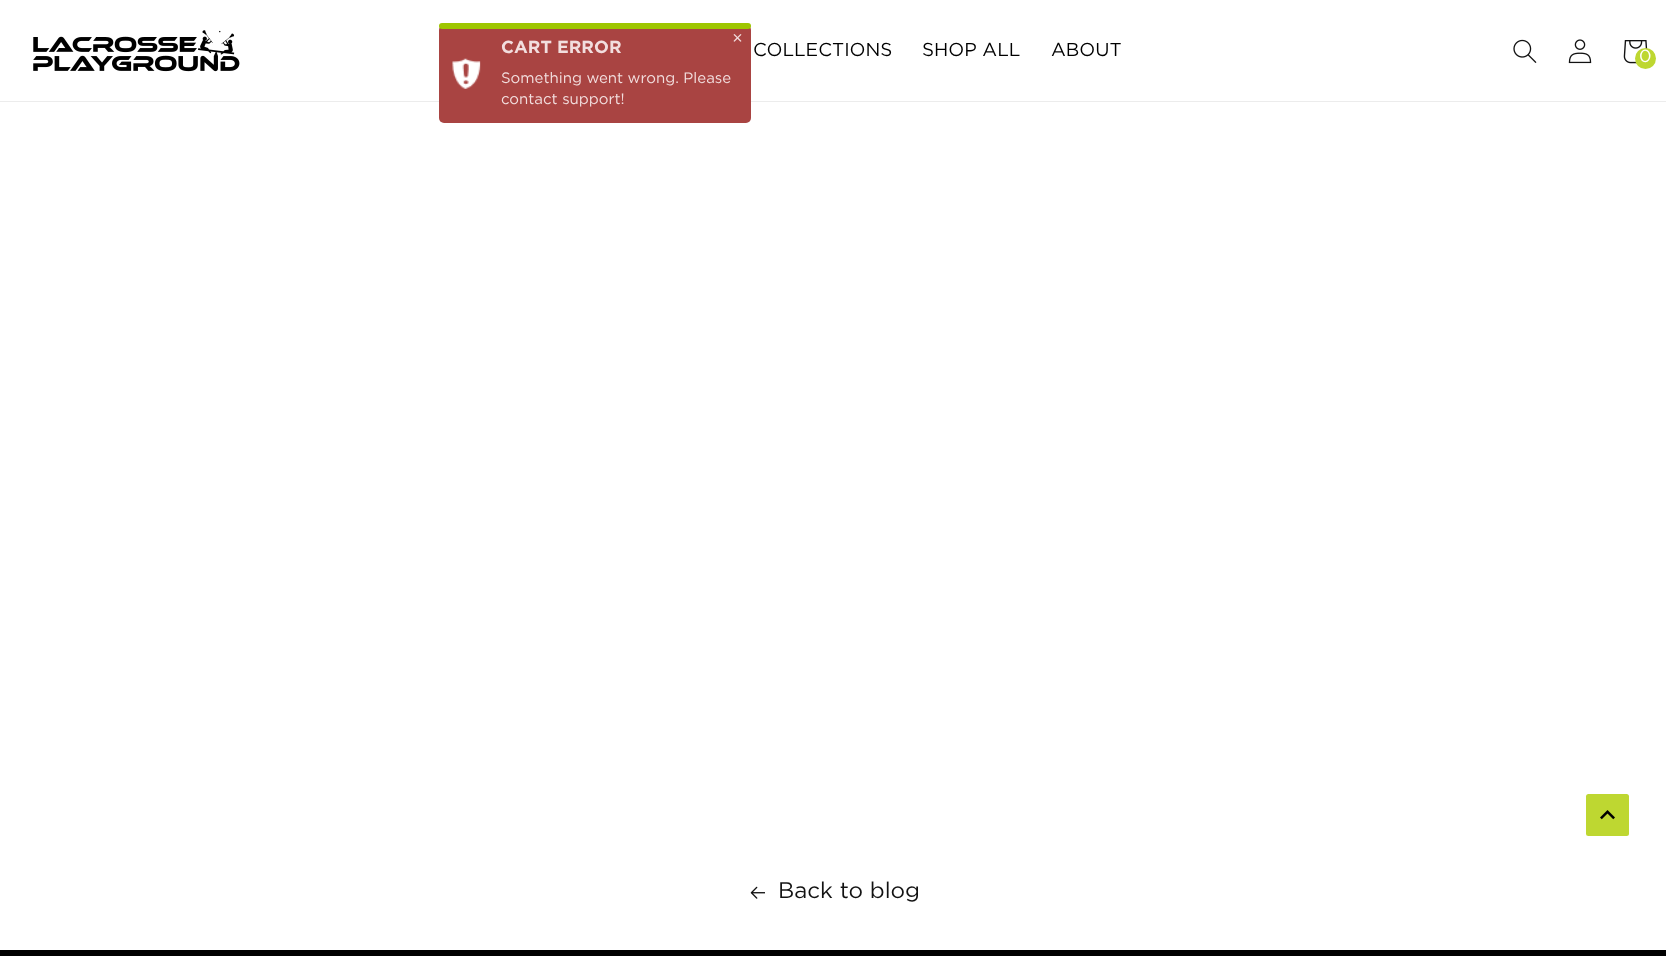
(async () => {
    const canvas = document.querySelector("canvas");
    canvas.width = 1666;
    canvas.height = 956;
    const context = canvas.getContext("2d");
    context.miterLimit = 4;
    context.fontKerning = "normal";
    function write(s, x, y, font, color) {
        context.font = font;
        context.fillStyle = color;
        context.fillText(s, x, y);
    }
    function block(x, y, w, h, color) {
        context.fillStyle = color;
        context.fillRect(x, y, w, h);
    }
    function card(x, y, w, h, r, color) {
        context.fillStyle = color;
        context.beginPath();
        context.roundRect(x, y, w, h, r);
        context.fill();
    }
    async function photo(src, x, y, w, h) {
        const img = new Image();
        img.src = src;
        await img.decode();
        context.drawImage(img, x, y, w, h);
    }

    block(0, 0, 1666, 956, "rgb(255, 255, 255)");
    block(0, 101, 1666, 1, "rgb(236, 236, 236)");
    card(439, 25, 312, 98, 5, "rgb(169, 68, 66)");
    await photo("media/1.png", 452, 58, 29, 31);
    card(439, 23, 312, 6, 3, "rgb(158, 198, 0)");
    write("×", 732, 44, "17.5px Gotham", "rgb(242, 222, 222)");
    write("CART ERROR", 501, 53, "bold 17.5px Gotham", "rgb(242, 222, 222)");
    write("Something went wrong. Please", 501, 83, "15px Gotham", "rgb(242, 222, 222)");
    write("contact support!", 501, 104, "15px Gotham", "rgb(242, 222, 222)");
    await photo("media/2.png", 33, 30, 207, 42);
    write("COLLECTIONS", 753, 56, "18.75px Gotham", "rgb(0, 0, 0)");
    write("SHOP ALL", 922, 56, "18.75px Gotham", "rgb(0, 0, 0)");
    write("ABOUT", 1051, 56, "18.75px Gotham", "rgb(0, 0, 0)");
    await photo("media/3.png", 1513, 39, 24, 24);
    await photo("media/4.png", 1568, 39, 24, 25);
    await photo("media/5.png", 1623, 40, 25, 24);
    context.fillStyle = "rgb(190, 215, 49)";
    context.beginPath();
    context.arc(1645.5, 58.5, 10.5, 0, Math.PI * 2);
    context.fill();
    write("0", 1639, 62, "17.5px Gotham", "rgb(255, 255, 255)");
    card(1586, 794, 43, 42, 2.5, "rgb(190, 215, 49)");
    await photo("media/6.png", 1600, 810, 15, 10);
    await photo("media/7.png", 750, 886, 15, 13);
    write("Back to blog", 778, 898, "22.5px Gotham", "rgb(18, 18, 18)");
    block(0, 950, 1666, 6, "rgb(0, 0, 0)");
})();
